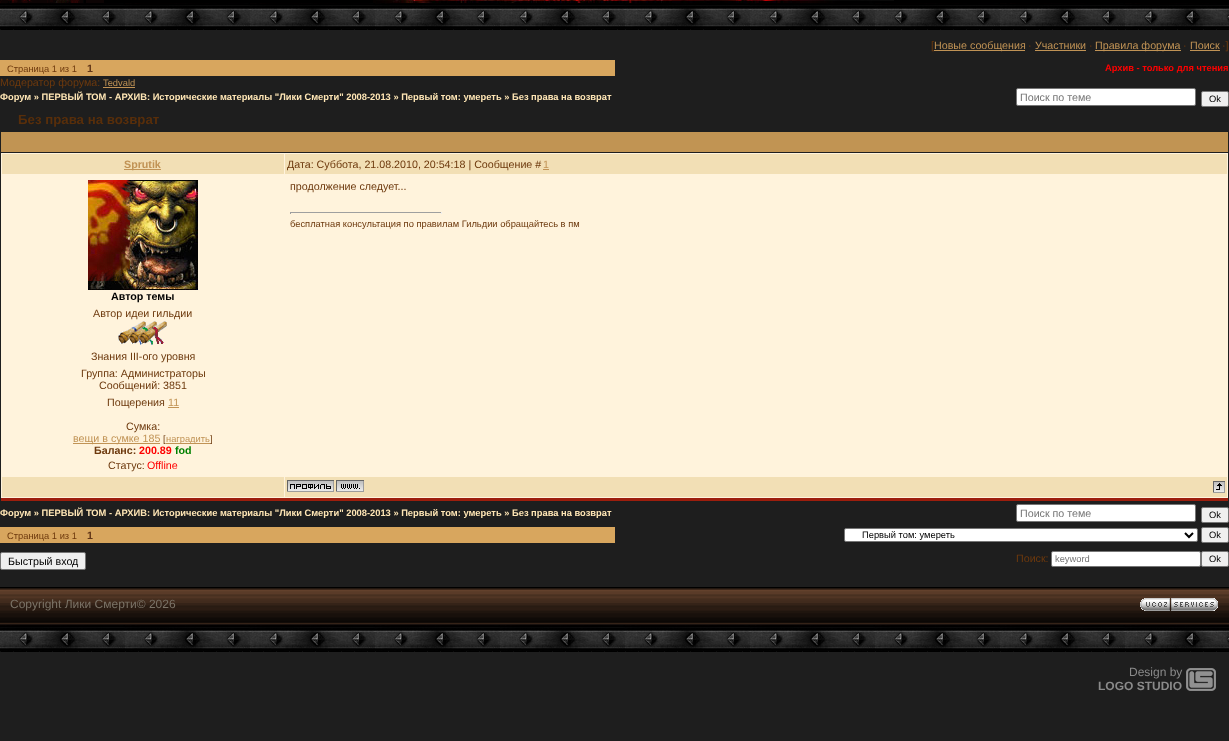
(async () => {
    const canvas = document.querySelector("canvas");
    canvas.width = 1229;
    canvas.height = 741;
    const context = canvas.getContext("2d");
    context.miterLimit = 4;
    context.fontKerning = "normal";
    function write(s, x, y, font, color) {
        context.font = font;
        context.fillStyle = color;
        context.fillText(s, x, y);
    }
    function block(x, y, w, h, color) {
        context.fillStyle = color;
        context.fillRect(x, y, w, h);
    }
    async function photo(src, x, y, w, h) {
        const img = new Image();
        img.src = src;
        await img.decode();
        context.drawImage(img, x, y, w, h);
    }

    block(0, 0, 1229, 741, "rgb(30, 30, 30)");
    block(104, 0, 1125, 3, "rgb(0, 0, 0)");
    await photo("media/1.png", 0, 0, 104, 3);
    await photo("media/2.png", 373, 0, 521, 3);
    await photo("media/3.png", 0, 3, 1229, 27);
    write("[", 931, 49, "10.7px Liberation Sans", "rgb(109, 57, 13)");
    block(934, 50, 91, 1, "rgb(193, 147, 85)");
    write("Новые сообщения", 934, 49, "10.7px Liberation Sans", "rgb(193, 147, 85)");
    write("·", 1028, 49, "10.7px Liberation Sans", "rgb(109, 57, 13)");
    write("Участники", 1035, 49, "10.7px Liberation Sans", "rgb(193, 147, 85)");
    block(1035, 50, 51, 1, "rgb(193, 147, 85)");
    write("·", 1089, 49, "10.7px Liberation Sans", "rgb(109, 57, 13)");
    block(1095, 50, 86, 1, "rgb(193, 147, 85)");
    write("Правила форума", 1095, 49, "10.7px Liberation Sans", "rgb(193, 147, 85)");
    write("·", 1183, 49, "10.7px Liberation Sans", "rgb(109, 57, 13)");
    write("Поиск", 1190, 49, "10.7px Liberation Sans", "rgb(193, 147, 85)");
    block(1190, 50, 30, 1, "rgb(193, 147, 85)");
    write("·]", 1222, 49, "10.7px Liberation Sans", "rgb(109, 57, 13)");
    block(0, 60, 615, 16, "rgb(216, 166, 94)");
    write("Страница 1 из 1", 7, 72, "9.33px Liberation Sans", "rgb(109, 57, 13)");
    write("1", 87, 72, "bold 10.7px Liberation Sans", "rgb(97, 54, 24)");
    write("Архив - только для чтения", 1105, 71, "bold 9.33px Liberation Sans", "rgb(255, 0, 0)");
    write("Модератор форума:", 0, 86, "10.7px Liberation Sans", "rgb(109, 57, 13)");
    write("Tedvald", 103, 86, "9.33px Liberation Sans", "rgb(193, 147, 85)");
    block(103, 87, 32, 1, "rgb(193, 147, 85)");
    write("Форум » ПЕРВЫЙ ТОМ - АРХИВ: Исторические материалы \"Лики Смерти\" 2008-2013 » Первый том: умереть » Без права на возврат", 0, 100, "bold 9.33px Liberation Sans", "rgb(255, 230, 181)");
    context.fillStyle = "rgb(255, 255, 255)";
    context.beginPath();
    context.roundRect(1016.5, 88.5, 179, 17, 1.5);
    context.fill();
    context.strokeStyle = "rgb(118, 118, 118)";
    context.stroke();
    write("Поиск по теме", 1020, 101, "10.7px Liberation Sans", "rgb(117, 117, 117)");
    context.fillStyle = "rgb(239, 239, 239)";
    context.beginPath();
    context.roundRect(1201.5, 91.5, 27, 15, 1.5);
    context.fill();
    context.stroke();
    write("Ok", 1209, 102, "9.33px Liberation Sans", "rgb(0, 0, 0)");
    write("Без права на возврат", 18, 124, "bold 13.25px Liberation Sans", "rgb(88, 46, 10)");
    block(1, 132, 1227, 20, "rgb(193, 148, 83)");
    block(1, 153, 1227, 345, "rgb(255, 243, 220)");
    block(1, 498, 1227, 3, "rgb(157, 30, 13)");
    block(2, 154, 282, 20, "rgb(242, 223, 181)");
    block(124, 169, 37, 1, "rgb(193, 147, 85)");
    write("Sprutik", 124, 168, "bold 10.7px Liberation Sans", "rgb(193, 147, 85)");
    block(285, 154, 942, 20, "rgb(242, 223, 181)");
    write("Дата: Суббота, 21.08.2010, 20:54:18 | Сообщение #", 287, 168, "10.7px Liberation Sans", "rgb(109, 57, 13)");
    write("1", 543, 168, "10.7px Liberation Sans", "rgb(193, 147, 85)");
    block(543, 169, 6, 1, "rgb(193, 147, 85)");
    write("продолжение следует...", 290, 190, "10.7px Liberation Sans", "rgb(109, 57, 13)");
    block(290, 212, 152, 1, "rgb(159, 159, 159)");
    block(441, 212, 1, 2, "rgb(238, 238, 238)");
    block(290, 212, 1, 2, "rgb(159, 159, 159)");
    write("бесплатная консультация по правилам Гильдии обращайтесь в пм", 290, 227, "9.33px Liberation Sans", "rgb(109, 57, 13)");
    await photo("media/4.png", 88, 180, 110, 110);
    write("Автор темы", 111, 300, "bold 10.7px Liberation Sans", "rgb(0, 0, 0)");
    write("Автор идеи гильдии", 93, 317, "10.7px Liberation Sans", "rgb(109, 57, 13)");
    await photo("media/5.png", 118, 321, 49, 24);
    write("Знания III-ого уровня", 91, 360, "10.7px Liberation Sans", "rgb(109, 57, 13)");
    write("Группа: Администраторы", 81, 377, "10.7px Liberation Sans", "rgb(109, 57, 13)");
    write("Сообщений: 3851", 99, 389, "10.7px Liberation Sans", "rgb(109, 57, 13)");
    write("Пощерения", 107, 406, "10.7px Liberation Sans", "rgb(109, 57, 13)");
    write("11", 168, 406, "10.7px Liberation Sans", "rgb(193, 147, 85)");
    block(168, 407, 11, 1, "rgb(193, 147, 85)");
    write("Сумка:", 126, 430, "10.7px Liberation Sans", "rgb(109, 57, 13)");
    block(73, 443, 87, 1, "rgb(193, 147, 85)");
    write("вещи в сумке 185", 73, 442, "10.7px Liberation Sans", "rgb(193, 147, 85)");
    write("[", 163, 442, "9.33px Liberation Sans", "rgb(109, 57, 13)");
    block(166, 443, 44, 1, "rgb(193, 147, 85)");
    write("наградить", 166, 442, "9.33px Liberation Sans", "rgb(193, 147, 85)");
    write("]", 210, 442, "9.33px Liberation Sans", "rgb(109, 57, 13)");
    write("Баланс:", 94, 454, "bold 10.7px Liberation Sans", "rgb(109, 57, 13)");
    write("200.89", 139, 454, "bold 10.7px Liberation Sans", "rgb(255, 0, 0)");
    write("fod", 175, 454, "bold 10.7px Liberation Sans", "rgb(0, 128, 0)");
    write("Статус:", 108, 469, "10.7px Liberation Sans", "rgb(109, 57, 13)");
    write("Offline", 147, 469, "10.7px Liberation Sans", "rgb(255, 0, 0)");
    block(2, 477, 282, 20, "rgb(242, 223, 181)");
    block(285, 477, 942, 20, "rgb(242, 223, 181)");
    await photo("media/6.png", 287, 480, 47, 12);
    await photo("media/7.png", 336, 480, 28, 12);
    await photo("media/8.png", 1213, 481, 12, 12);
    write("Форум » ПЕРВЫЙ ТОМ - АРХИВ: Исторические материалы \"Лики Смерти\" 2008-2013 » Первый том: умереть » Без права на возврат", 0, 516, "bold 9.33px Liberation Sans", "rgb(255, 230, 181)");
    context.fillStyle = "rgb(255, 255, 255)";
    context.beginPath();
    context.roundRect(1016.5, 504.5, 179, 17, 1.5);
    context.fill();
    context.stroke();
    write("Поиск по теме", 1020, 517, "10.7px Liberation Sans", "rgb(117, 117, 117)");
    context.fillStyle = "rgb(239, 239, 239)";
    context.beginPath();
    context.roundRect(1201.5, 507.5, 27, 15, 1.5);
    context.fill();
    context.stroke();
    write("Ok", 1209, 518, "9.33px Liberation Sans", "rgb(0, 0, 0)");
    block(0, 527, 615, 16, "rgb(216, 166, 94)");
    write("Страница 1 из 1", 7, 539, "9.33px Liberation Sans", "rgb(109, 57, 13)");
    write("1", 87, 539, "bold 10.7px Liberation Sans", "rgb(97, 54, 24)");
    context.fillStyle = "rgb(255, 255, 255)";
    context.beginPath();
    context.roundRect(844.5, 528.5, 353, 13, 1.5);
    context.fill();
    context.stroke();
    context.beginPath();
    context.moveTo(1185, 533);
    context.lineTo(1189, 537);
    context.lineTo(1193, 533);
    context.strokeStyle = "rgb(0, 0, 0)";
    context.lineWidth = 2;
    context.stroke();
    write("Первый том: умереть", 862, 538, "9.33px Liberation Sans", "rgb(0, 0, 0)");
    context.fillStyle = "rgb(239, 239, 239)";
    context.beginPath();
    context.roundRect(1201.5, 527.5, 27, 15, 1.5);
    context.fill();
    context.strokeStyle = "rgb(118, 118, 118)";
    context.lineWidth = 1;
    context.stroke();
    write("Ok", 1209, 538, "9.33px Liberation Sans", "rgb(0, 0, 0)");
    context.fillStyle = "rgb(239, 239, 239)";
    context.beginPath();
    context.roundRect(0.5, 552.5, 85, 17, 1.5);
    context.fill();
    context.stroke();
    write("Быстрый вход", 8, 565, "10.7px Liberation Sans", "rgb(0, 0, 0)");
    write("Поиск:", 1016, 562, "10.7px Liberation Sans", "rgb(109, 57, 13)");
    context.fillStyle = "rgb(255, 255, 255)";
    context.beginPath();
    context.roundRect(1051.5, 551.5, 149, 15, 1.5);
    context.fill();
    context.stroke();
    write("keyword", 1055, 562, "9.33px Liberation Sans", "rgb(117, 117, 117)");
    context.fillStyle = "rgb(239, 239, 239)";
    context.beginPath();
    context.roundRect(1201.5, 551.5, 27, 15, 1.5);
    context.fill();
    context.stroke();
    write("Ok", 1209, 562, "9.33px Liberation Sans", "rgb(0, 0, 0)");
    await photo("media/9.png", 0, 587, 1229, 38);
    write("Copyright Лики Смерти© 2026", 10, 608, "12px Liberation Sans", "rgb(123, 115, 103)");
    await photo("media/10.png", 1140, 598, 78, 13);
    await photo("media/3.png", 0, 625, 1229, 27);
    write("Design by", 1129, 676, "12px Liberation Sans", "rgb(138, 138, 138)");
    write("LOGO STUDIO", 1098, 690, "bold 12px Liberation Sans", "rgb(138, 138, 138)");
    await photo("media/11.png", 1186, 668, 30, 23);
})();
